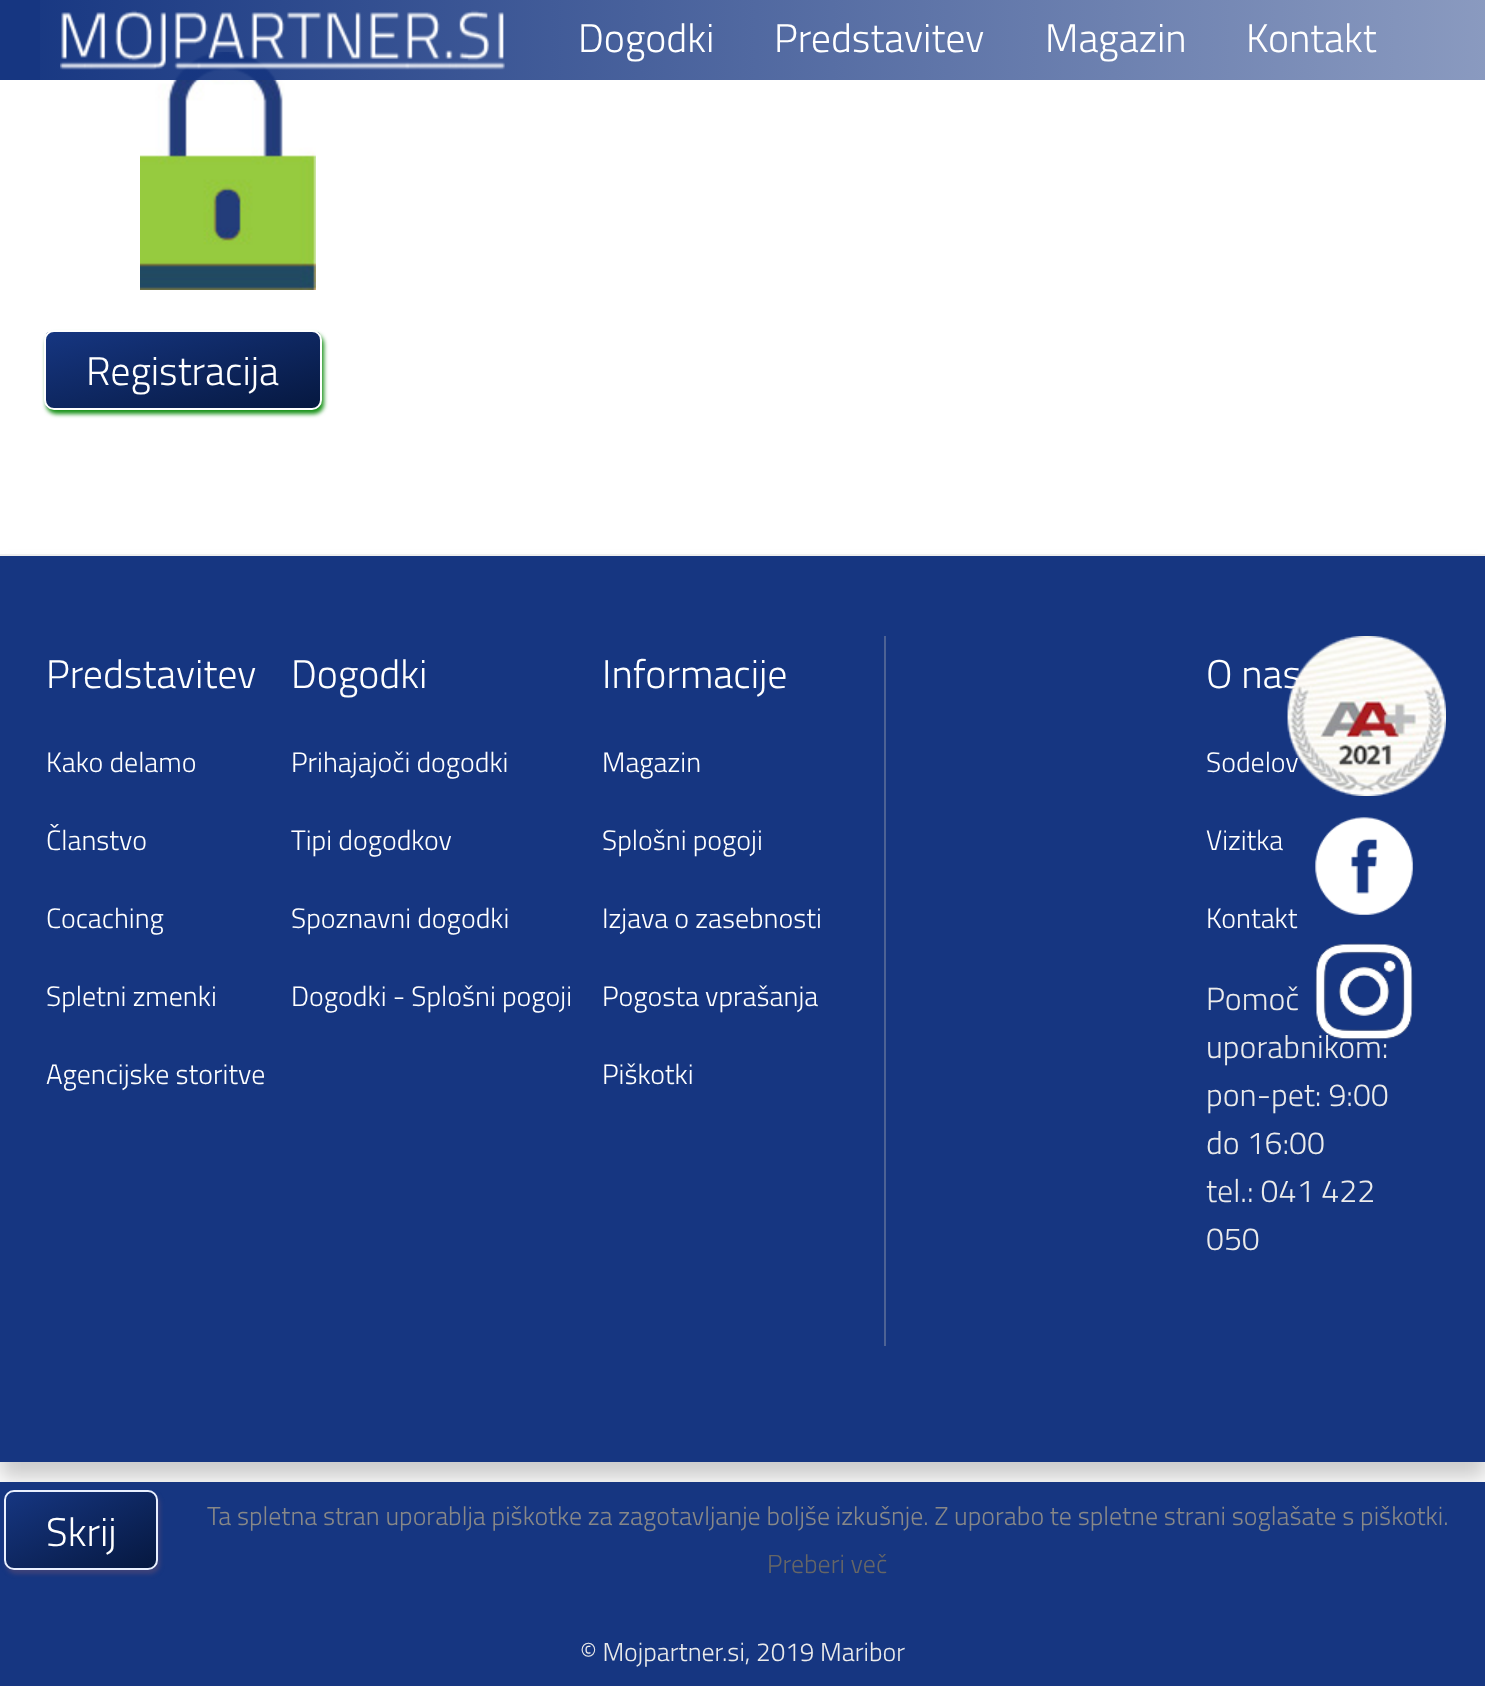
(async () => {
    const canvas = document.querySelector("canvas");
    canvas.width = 1485;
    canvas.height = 1686;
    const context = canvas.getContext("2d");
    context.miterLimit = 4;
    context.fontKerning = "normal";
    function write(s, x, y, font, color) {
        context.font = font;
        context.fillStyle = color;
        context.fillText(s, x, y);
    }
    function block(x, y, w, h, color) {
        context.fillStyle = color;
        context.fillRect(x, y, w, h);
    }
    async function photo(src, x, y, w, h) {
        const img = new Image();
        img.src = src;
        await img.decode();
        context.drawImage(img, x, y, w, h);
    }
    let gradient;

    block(0, 0, 1485, 1686, "rgb(255, 255, 255)");
    await photo("media/2.png", 140, 52, 176, 238);
    gradient = context.createLinearGradient(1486, 40, 0, 40);
    gradient.addColorStop(0, "rgba(22, 54, 129, 0.5)");
    gradient.addColorStop(1, "rgb(22, 54, 129)");
    context.fillStyle = gradient;
    context.fillRect(40, 0, 1445, 80);
    await photo("media/1.png", 60, 10, 445, 60);
    block(0, 0, 40, 80, "rgb(22, 54, 129)");
    write("Dogodki", 578, 52, "300 40px Titillium Web", "rgb(255, 255, 255)");
    write("Predstavitev", 774, 52, "300 40px Titillium Web", "rgb(255, 255, 255)");
    write("Magazin", 1045, 52, "300 40px Titillium Web", "rgb(255, 255, 255)");
    write("Kontakt", 1246, 52, "300 40px Titillium Web", "rgb(255, 255, 255)");
    context.fillStyle = "rgb(24, 146, 24)";
    context.filter = "blur(2px)";
    context.beginPath();
    context.roundRect(46, 334, 278, 80, 10);
    context.fill();
    context.filter = "none";
    context.save();
    context.beginPath();
    context.roundRect(44, 330, 278, 80, 10);
    context.clip();
    gradient = context.createLinearGradient(163, 299, 203, 441);
    gradient.addColorStop(0, "rgb(22, 54, 129)");
    gradient.addColorStop(1, "rgb(6, 24, 64)");
    context.fillStyle = gradient;
    context.fillRect(46, 332, 274, 76);
    context.restore();
    context.beginPath();
    context.roundRect(45, 331, 276, 78, 9);
    context.strokeStyle = "rgb(255, 255, 255)";
    context.lineWidth = 2;
    context.stroke();
    write("Registracija", 86, 385, "300 40px Titillium Web", "rgb(255, 255, 255)");
    context.fillStyle = "rgba(0, 0, 0, 0.2)";
    context.filter = "blur(10px)";
    context.beginPath();
    context.rect(0, 570, 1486, 908);
    context.fill();
    context.filter = "none";
    block(0, 556, 1485, 906, "rgb(22, 54, 129)");
    block(0, 554, 1485, 2, "rgb(238, 238, 238)");
    write("Predstavitev", 46, 688, "300 40px Titillium Web", "rgb(255, 255, 255)");
    write("Dogodki", 291, 688, "300 40px Titillium Web", "rgb(255, 255, 255)");
    write("Informacije", 602, 688, "300 40px Titillium Web", "rgb(255, 255, 255)");
    write("Kako delamo", 46, 772, "300 28px Titillium Web", "rgb(255, 255, 255)");
    write("Prihajajoči dogodki", 291, 772, "300 28px Titillium Web", "rgb(255, 255, 255)");
    write("Magazin", 602, 772, "300 28px Titillium Web", "rgb(255, 255, 255)");
    write("Članstvo", 46, 850, "300 28px Titillium Web", "rgb(255, 255, 255)");
    write("Tipi dogodkov", 291, 850, "300 28px Titillium Web", "rgb(255, 255, 255)");
    write("Splošni pogoji", 602, 850, "300 28px Titillium Web", "rgb(255, 255, 255)");
    write("Cocaching", 46, 928, "300 28px Titillium Web", "rgb(255, 255, 255)");
    write("Spoznavni dogodki", 291, 928, "300 28px Titillium Web", "rgb(255, 255, 255)");
    write("Izjava o zasebnosti", 602, 928, "300 28px Titillium Web", "rgb(255, 255, 255)");
    write("Spletni zmenki", 46, 1006, "300 28px Titillium Web", "rgb(255, 255, 255)");
    write("Dogodki - Splošni pogoji", 291, 1006, "300 28px Titillium Web", "rgb(255, 255, 255)");
    write("Pogosta vprašanja", 602, 1006, "300 28px Titillium Web", "rgb(255, 255, 255)");
    write("Agencijske storitve", 46, 1084, "300 28px Titillium Web", "rgb(255, 255, 255)");
    write("Piškotki", 602, 1084, "300 28px Titillium Web", "rgb(255, 255, 255)");
    write("O nas", 1206, 688, "300 40px Titillium Web", "rgb(255, 255, 255)");
    write("Sodelov", 1206, 772, "300 28px Titillium Web", "rgb(255, 255, 255)");
    await photo("media/3.png", 1287, 636, 159, 160);
    block(884, 636, 2, 710, "rgb(77, 98, 148)");
    write("Vizitka", 1206, 850, "300 28px Titillium Web", "rgb(255, 255, 255)");
    write("Kontakt", 1206, 928, "300 28px Titillium Web", "rgb(255, 255, 255)");
    write("Pomoč", 1206, 1010, "300 32px Titillium Web", "rgb(235, 235, 235)");
    write("uporabnikom:", 1206, 1058, "300 32px Titillium Web", "rgb(235, 235, 235)");
    write("pon-pet: 9:00", 1206, 1106, "300 32px Titillium Web", "rgb(235, 235, 235)");
    write("do 16:00", 1206, 1154, "300 32px Titillium Web", "rgb(235, 235, 235)");
    write("tel.: 041 422", 1206, 1202, "300 32px Titillium Web", "rgb(235, 235, 235)");
    write("050", 1206, 1250, "300 32px Titillium Web", "rgb(235, 235, 235)");
    await photo("media/4.png", 1315, 817, 98, 98);
    await photo("media/5.png", 1315, 943, 98, 97);
    block(0, 1482, 1485, 204, "rgb(22, 54, 129)");
    context.fillStyle = "rgb(61, 66, 121)";
    context.filter = "blur(2px)";
    context.beginPath();
    context.roundRect(6, 1494, 154, 80, 10);
    context.fill();
    context.filter = "none";
    context.save();
    context.beginPath();
    context.roundRect(4, 1490, 154, 80, 10);
    context.clip();
    gradient = context.createLinearGradient(50, 1470, 112, 1590);
    gradient.addColorStop(0, "rgb(22, 54, 129)");
    gradient.addColorStop(1, "rgb(6, 24, 64)");
    context.fillStyle = gradient;
    context.fillRect(6, 1492, 150, 76);
    context.restore();
    context.beginPath();
    context.roundRect(5, 1491, 152, 78, 9);
    context.strokeStyle = "rgb(233, 240, 255)";
    context.stroke();
    write("Skrij", 46, 1546, "300 40px Titillium Web", "rgb(255, 255, 255)");
    write("Ta spletna stran uporablja piškotke za zagotavljanje boljše izkušnje. Z uporabo te spletne strani soglašate s piškotki.", 207, 1525, "300 26px Titillium Web", "rgb(136, 136, 136)");
    write("Preberi več", 767, 1573, "300 26px Titillium Web", "rgb(102, 102, 102)");
    write("© Mojpartner.si, 2019 Maribor", 580, 1661, "300 26px Titillium Web", "rgb(235, 235, 235)");
})();
